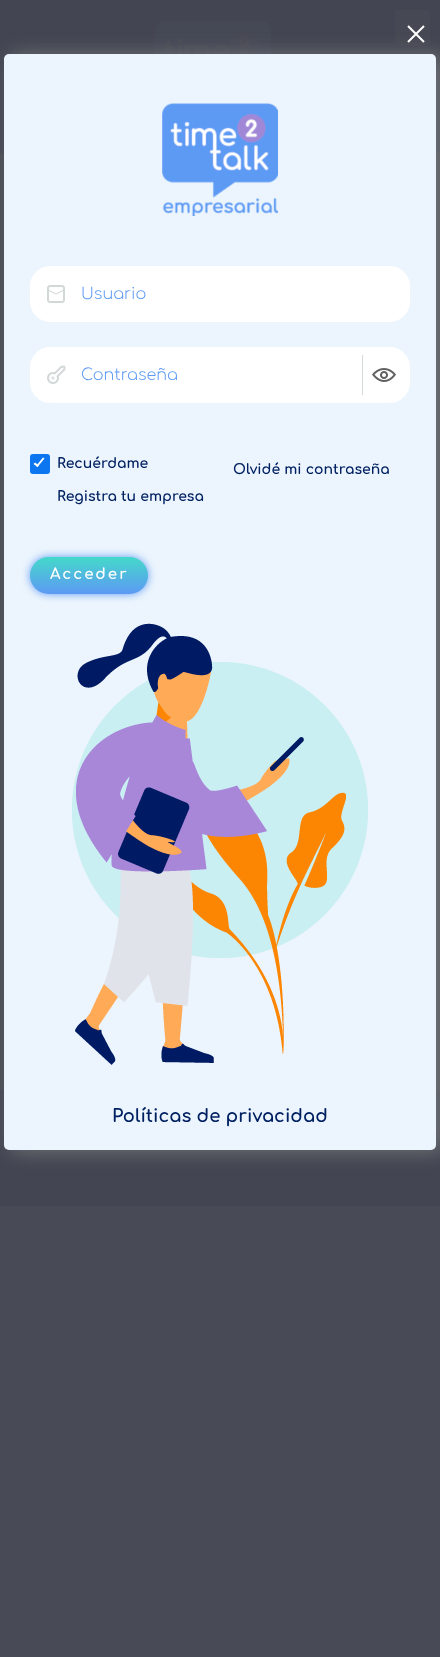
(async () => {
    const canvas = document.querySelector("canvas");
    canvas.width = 440;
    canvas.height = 1657;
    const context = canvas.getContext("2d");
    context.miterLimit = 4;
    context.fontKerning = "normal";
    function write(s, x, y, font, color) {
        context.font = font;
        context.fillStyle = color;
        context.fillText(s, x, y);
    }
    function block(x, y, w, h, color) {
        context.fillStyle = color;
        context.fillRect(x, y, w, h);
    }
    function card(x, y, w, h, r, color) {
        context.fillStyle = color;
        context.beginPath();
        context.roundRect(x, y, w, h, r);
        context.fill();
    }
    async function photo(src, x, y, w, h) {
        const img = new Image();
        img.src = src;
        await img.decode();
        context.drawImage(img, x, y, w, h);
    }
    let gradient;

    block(0, 0, 440, 1657, "rgb(72, 74, 85)");
    block(0, 0, 440, 153, "rgb(67, 70, 82)");
    await photo("media/1.png", 155, 20, 116, 34);
    card(395, 10, 35, 35, 3, "rgb(70, 72, 83)");
    await photo("media/2.png", 406, 23, 11, 9);
    block(0, 1091, 440, 115, "rgb(67, 70, 82)");
    block(0, 1090, 440, 1, "rgb(68, 70, 82)");
    context.fillStyle = "rgba(143, 143, 143, 0.62)";
    context.filter = "blur(10px)";
    context.beginPath();
    context.roundRect(11, 55, 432, 1096, 5);
    context.fill();
    context.filter = "none";
    card(4, 54, 432, 1096, 5, "rgb(236, 245, 253)");
    context.beginPath();
    context.moveTo(408, 26);
    context.lineTo(424, 42);
    context.moveTo(424, 26);
    context.lineTo(408, 42);
    context.strokeStyle = "rgb(255, 255, 255)";
    context.lineWidth = 2;
    context.stroke();
    await photo("media/3.png", 162, 103, 116, 113);
    context.fillStyle = "rgb(255, 255, 255)";
    context.beginPath();
    context.roundRect(30.5, 266.5, 379, 55, 19.5);
    context.fill();
    context.lineWidth = 1;
    context.stroke();
    await photo("media/4.png", 47, 285, 18, 18);
    write("Usuario", 81, 299, "300 16px Comfortaa", "rgb(93, 154, 244)");
    context.fillStyle = "rgb(255, 255, 255)";
    context.beginPath();
    context.roundRect(30.5, 347.5, 379, 55, 19.5);
    context.fill();
    context.stroke();
    await photo("media/5.png", 47, 365, 19, 19);
    write("Contraseña", 81, 380, "300 16px Comfortaa", "rgb(93, 154, 244)");
    await photo("media/6.png", 372, 368, 24, 14);
    block(362, 355, 1, 40, "rgb(210, 216, 216)");
    context.fillStyle = "rgb(11, 118, 239)";
    context.beginPath();
    context.roundRect(31, 455, 18, 18, 2);
    context.fill();
    context.strokeStyle = "rgb(11, 118, 239)";
    context.lineWidth = 2;
    context.stroke();
    context.fillStyle = "rgb(255, 255, 255)";
    context.beginPath();
    context.moveTo(43, 457.5);
    context.lineTo(44.5, 458.5);
    context.lineTo(37.5, 467);
    context.lineTo(36, 466);
    context.closePath();
    context.fill();
    context.beginPath();
    context.moveTo(35, 462.5);
    context.lineTo(39, 465.5);
    context.lineTo(37.5, 467);
    context.lineTo(33.5, 464);
    context.closePath();
    context.fill();
    write("Recuérdame", 57, 468, "bold 14px Comfortaa", "rgb(0, 32, 98)");
    write("Registra tu empresa", 57, 501, "bold 14px Comfortaa", "rgb(0, 32, 98)");
    write("Olvidé mi contraseña", 233, 474, "bold 14px Comfortaa", "rgb(0, 32, 98)");
    context.fillStyle = "rgb(93, 153, 244)";
    context.filter = "blur(4px)";
    context.beginPath();
    context.roundRect(30, 557, 118, 37, 18.5);
    context.fill();
    context.filter = "none";
    gradient = context.createLinearGradient(89, 557, 89, 594);
    gradient.addColorStop(0, "rgb(68, 217, 202)");
    gradient.addColorStop(1, "rgb(93, 153, 244)");
    context.fillStyle = gradient;
    context.beginPath();
    context.roundRect(30, 557, 118, 37, 18.5);
    context.fill();
    context.letterSpacing = "2px";
    write("Acceder", 50, 579, "bold 15px Comfortaa", "rgb(255, 255, 255)");
    await photo("media/7.png", 72, 623, 296, 442);
    context.letterSpacing = "0px";
    write("Políticas de privacidad", 112, 1122, "bold 18px Comfortaa", "rgb(0, 32, 98)");
})();
